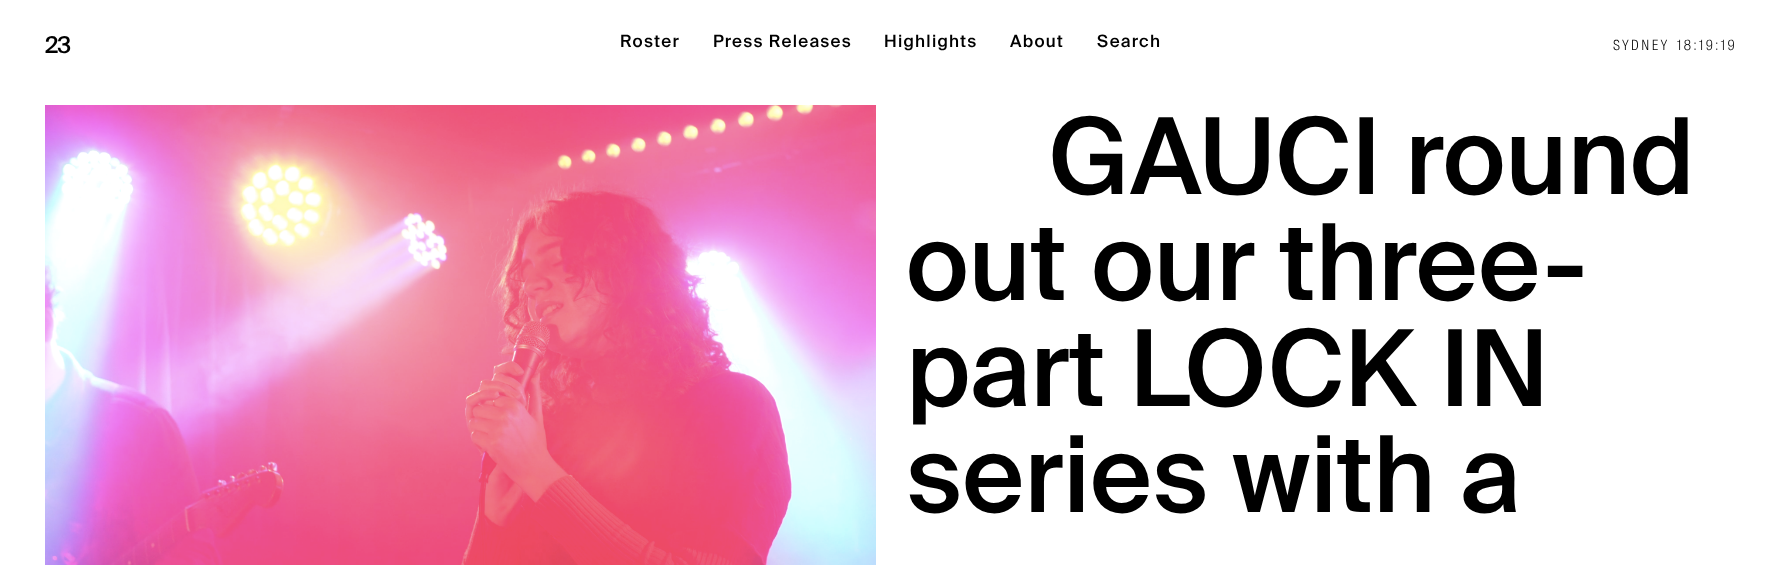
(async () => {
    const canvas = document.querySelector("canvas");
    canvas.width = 1781;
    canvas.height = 568;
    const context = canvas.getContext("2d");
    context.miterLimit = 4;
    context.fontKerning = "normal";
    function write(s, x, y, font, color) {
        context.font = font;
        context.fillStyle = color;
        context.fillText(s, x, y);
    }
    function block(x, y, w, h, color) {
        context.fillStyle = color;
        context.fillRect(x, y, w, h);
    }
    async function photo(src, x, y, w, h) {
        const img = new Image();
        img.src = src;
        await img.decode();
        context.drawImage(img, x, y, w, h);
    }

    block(0, 0, 1781, 568, "rgb(255, 255, 255)");
    context.letterSpacing = "1.25px";
    write("Roster", 620, 47, "500 17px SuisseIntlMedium", "rgb(0, 0, 0)");
    write("Press Releases", 713, 47, "500 17px SuisseIntlMedium", "rgb(0, 0, 0)");
    write("Highlights", 884, 47, "500 17px SuisseIntlMedium", "rgb(0, 0, 0)");
    write("About", 1010, 47, "500 17px SuisseIntlMedium", "rgb(0, 0, 0)");
    write("Search", 1097, 47, "500 17px SuisseIntlMedium", "rgb(0, 0, 0)");
    context.letterSpacing = "-1px";
    write("23", 45, 53, "500 23px SuisseIntlMedium", "rgb(0, 0, 0)");
    context.letterSpacing = "2.5px";
    write("SYDNEY", 1613, 50, "300 14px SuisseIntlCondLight", "rgb(0, 0, 0)");
    write("18:19:19", 1677, 50, "300 14px SuisseIntlCondLight", "rgb(0, 0, 0)");
    await photo("media/1.png", 45, 105, 831, 460);
    context.letterSpacing = "0px";
    write("GAUCI round", 1048, 194, "500 106px SuisseIntlMedium", "rgb(0, 0, 0)");
    write("out our three-", 906, 300, "500 106px SuisseIntlMedium", "rgb(0, 0, 0)");
    write("part LOCK IN", 906, 406, "500 106px SuisseIntlMedium", "rgb(0, 0, 0)");
    write("series with a", 906, 512, "500 106px SuisseIntlMedium", "rgb(0, 0, 0)");
})();
